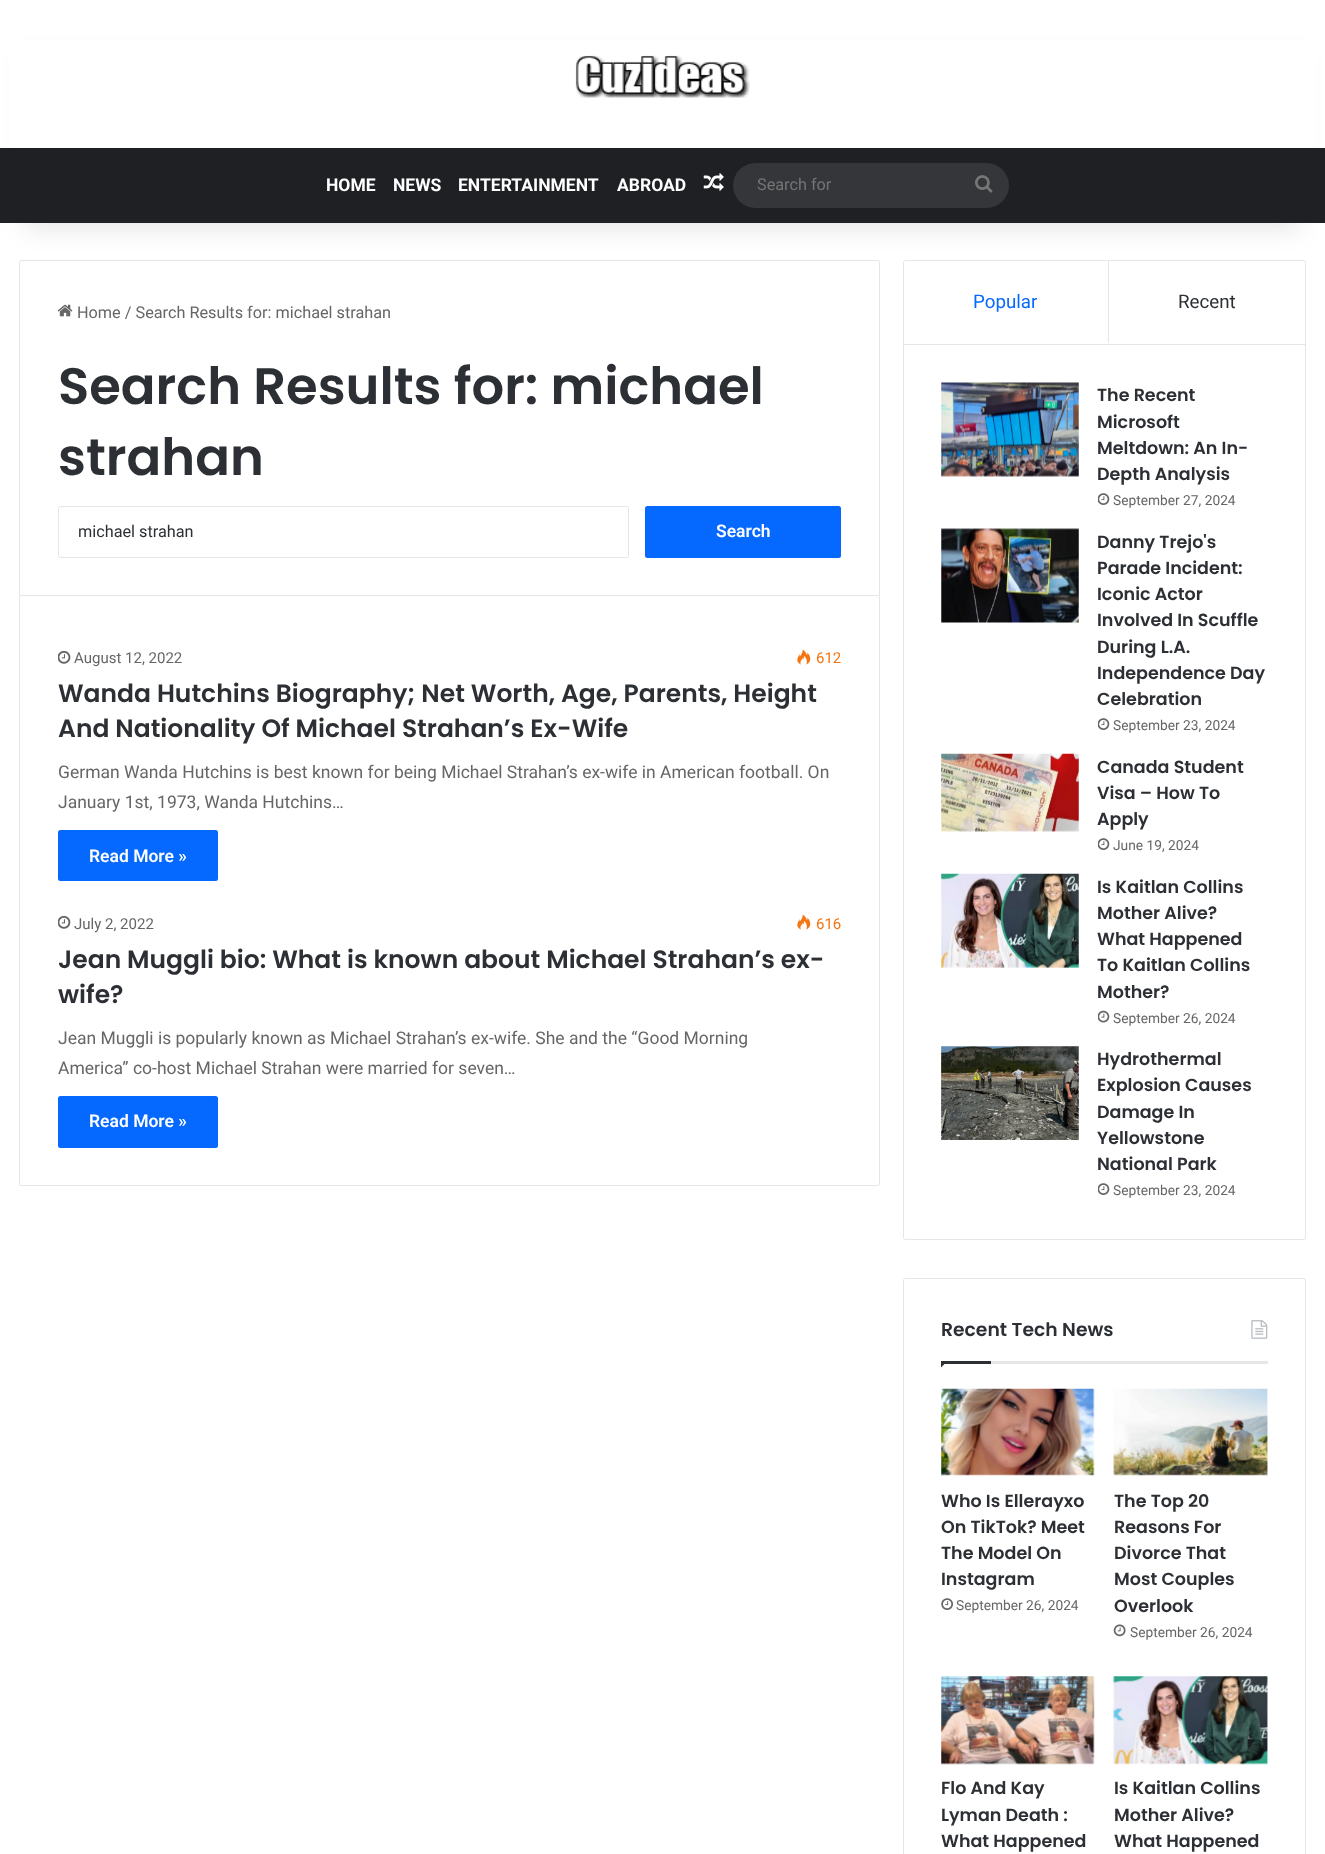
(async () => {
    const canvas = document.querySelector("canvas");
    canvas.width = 1325;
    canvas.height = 1854;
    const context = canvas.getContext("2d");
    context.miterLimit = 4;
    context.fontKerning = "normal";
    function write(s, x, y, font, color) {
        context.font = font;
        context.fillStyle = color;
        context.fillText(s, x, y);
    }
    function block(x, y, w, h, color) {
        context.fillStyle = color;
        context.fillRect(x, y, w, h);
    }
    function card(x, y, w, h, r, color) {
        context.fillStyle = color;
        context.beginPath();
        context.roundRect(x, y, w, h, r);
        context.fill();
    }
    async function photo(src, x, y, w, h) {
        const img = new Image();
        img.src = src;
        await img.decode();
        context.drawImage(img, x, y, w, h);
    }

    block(0, 0, 1325, 1854, "rgb(255, 255, 255)");
    context.beginPath();
    context.roundRect(19.5, 260.5, 860, 335, [2, 2, 0, 0]);
    context.strokeStyle = "rgb(230, 230, 230)";
    context.stroke();
    context.beginPath();
    context.roundRect(903.5, 260.5, 402, 979, 2);
    context.stroke();
    context.fillStyle = "rgb(230, 230, 230)";
    context.beginPath();
    context.moveTo(1109, 261);
    context.lineTo(1109, 344);
    context.lineTo(1108, 342);
    context.lineTo(1108, 261);
    context.closePath();
    context.fill();
    context.fillStyle = "rgba(0, 0, 0, 0.1)";
    context.filter = "blur(12.5px)";
    context.beginPath();
    context.rect(25, 56, 1275, 173);
    context.fill();
    context.filter = "none";
    block(9, 40, 1307, 108, "rgb(255, 255, 255)");
    await photo("media/1.png", 575, 55, 175, 43);
    block(0, 148, 1325, 75, "rgb(31, 32, 36)");
    write("HOME", 326, 191, "bold 17.5px Roboto", "rgb(255, 255, 255)");
    write("NEWS", 393, 191, "bold 17.5px Roboto", "rgb(255, 255, 255)");
    write("ENTERTAINMENT", 458, 191, "bold 17.5px Roboto", "rgb(255, 255, 255)");
    write("ABROAD", 617, 191, "bold 17.5px Roboto", "rgb(255, 255, 255)");
    await photo("media/2.png", 703, 173, 21, 18);
    card(733, 163, 276, 45, 22.5, "rgb(53, 54, 58)");
    write("Search for", 757, 190, "16.25px Roboto", "rgb(117, 117, 117)");
    await photo("media/3.png", 975, 175, 18, 18);
    await photo("media/4.png", 57, 304, 16, 13);
    write("Home / Search Results for: michael strahan", 77, 318, "16.25px Roboto", "rgb(102, 102, 102)");
    write("Search Results for: michael", 58, 404, "600 51.25px Poppins", "rgb(44, 47, 52)");
    write("strahan", 58, 475, "600 51.25px Poppins", "rgb(44, 47, 52)");
    context.beginPath();
    context.roundRect(58.5, 506.5, 570, 51, 2);
    context.stroke();
    write("michael strahan", 78, 537, "16.25px Roboto", "rgb(44, 47, 52)");
    card(645, 506, 196, 52, 2.5, "rgb(6, 105, 255)");
    write("Search", 716, 537, "600 17.5px Roboto", "rgb(255, 255, 255)");
    block(879, 596, 1, 589, "rgb(230, 230, 230)");
    block(20, 1185, 859, 1, "rgb(230, 230, 230)");
    block(19, 596, 1, 589, "rgb(230, 230, 230)");
    await photo("media/5.png", 58, 650, 13, 14);
    write("August 12, 2022", 74, 663, "15px Roboto", "rgb(102, 102, 102)");
    await photo("media/6.png", 797, 649, 14, 16);
    write("612", 816, 663, "15px Roboto", "rgb(244, 117, 18)");
    write("Wanda Hutchins Biography; Net Worth, Age, Parents, Height", 58, 702, "600 25px Poppins", "rgb(44, 47, 52)");
    write("And Nationality Of Michael Strahan’s Ex-Wife", 58, 737, "600 25px Poppins", "rgb(44, 47, 52)");
    write("German Wanda Hutchins is best known for being Michael Strahan’s ex-wife in American football. On", 58, 778, "17.5px Roboto", "rgb(102, 102, 102)");
    write("January 1st, 1973, Wanda Hutchins…", 58, 808, "17.5px Roboto", "rgb(102, 102, 102)");
    card(58, 830, 160, 51, 2.5, "rgb(6, 105, 255)");
    write("Read More »", 89, 862, "600 17.5px Roboto", "rgb(255, 255, 255)");
    await photo("media/5.png", 58, 915, 13, 14);
    write("July 2, 2022", 74, 929, "15px Roboto", "rgb(102, 102, 102)");
    await photo("media/6.png", 797, 914, 14, 16);
    write("616", 816, 929, "15px Roboto", "rgb(244, 117, 18)");
    write("Jean Muggli bio: What is known about Michael Strahan’s ex-", 58, 968, "600 25px Poppins", "rgb(44, 47, 52)");
    write("wife?", 58, 1003, "600 25px Poppins", "rgb(44, 47, 52)");
    write("Jean Muggli is popularly known as Michael Strahan’s ex-wife. She and the “Good Morning", 58, 1044, "17.5px Roboto", "rgb(102, 102, 102)");
    write("America” co-host Michael Strahan were married for seven…", 58, 1074, "17.5px Roboto", "rgb(102, 102, 102)");
    card(58, 1096, 160, 52, 2.5, "rgb(6, 105, 255)");
    write("Read More »", 89, 1127, "600 17.5px Roboto", "rgb(255, 255, 255)");
    block(904, 344, 401, 1, "rgb(230, 230, 230)");
    write("Popular", 973, 308, "18.75px Roboto", "rgb(6, 105, 255)");
    write("Recent", 1178, 308, "18.75px Roboto", "rgb(44, 47, 52)");
    await photo("media/7.png", 941, 382, 138, 95);
    write("The Recent", 1097, 401, "600 17.5px Poppins", "rgb(44, 47, 52)");
    write("Microsoft", 1097, 428, "600 17.5px Poppins", "rgb(44, 47, 52)");
    write("Meltdown: An In-", 1097, 454, "600 17.5px Poppins", "rgb(44, 47, 52)");
    write("Depth Analysis", 1097, 480, "600 17.5px Poppins", "rgb(44, 47, 52)");
    await photo("media/8.png", 1098, 493, 12, 12);
    write("September 27, 2024", 1113, 505, "13.75px Roboto", "rgb(102, 102, 102)");
    await photo("media/9.png", 941, 528, 138, 95);
    write("Danny Trejo's", 1097, 548, "600 17.5px Poppins", "rgb(44, 47, 52)");
    write("Parade Incident:", 1097, 574, "600 17.5px Poppins", "rgb(44, 47, 52)");
    write("Iconic Actor", 1097, 600, "600 17.5px Poppins", "rgb(44, 47, 52)");
    write("Involved In Scuffle", 1097, 626, "600 17.5px Poppins", "rgb(44, 47, 52)");
    write("During L.A.", 1097, 653, "600 17.5px Poppins", "rgb(44, 47, 52)");
    write("Independence Day", 1097, 679, "600 17.5px Poppins", "rgb(44, 47, 52)");
    write("Celebration", 1097, 705, "600 17.5px Poppins", "rgb(44, 47, 52)");
    await photo("media/8.png", 1098, 718, 12, 12);
    write("September 23, 2024", 1113, 730, "13.75px Roboto", "rgb(102, 102, 102)");
    await photo("media/10.png", 941, 753, 138, 79);
    write("Canada Student", 1097, 773, "600 17.5px Poppins", "rgb(44, 47, 52)");
    write("Visa – How To", 1097, 799, "600 17.5px Poppins", "rgb(44, 47, 52)");
    write("Apply", 1097, 825, "600 17.5px Poppins", "rgb(44, 47, 52)");
    await photo("media/8.png", 1098, 838, 12, 12);
    write("June 19, 2024", 1113, 850, "13.75px Roboto", "rgb(102, 102, 102)");
    await photo("media/11.png", 941, 873, 138, 95);
    write("Is Kaitlan Collins", 1097, 893, "600 17.5px Poppins", "rgb(44, 47, 52)");
    write("Mother Alive?", 1097, 919, "600 17.5px Poppins", "rgb(44, 47, 52)");
    write("What Happened", 1097, 945, "600 17.5px Poppins", "rgb(44, 47, 52)");
    write("To Kaitlan Collins", 1097, 971, "600 17.5px Poppins", "rgb(44, 47, 52)");
    write("Mother?", 1097, 998, "600 17.5px Poppins", "rgb(44, 47, 52)");
    await photo("media/12.png", 1098, 1010, 12, 13);
    write("September 26, 2024", 1113, 1023, "13.75px Roboto", "rgb(102, 102, 102)");
    await photo("media/13.png", 941, 1046, 138, 94);
    write("Hydrothermal", 1097, 1065, "600 17.5px Poppins", "rgb(44, 47, 52)");
    write("Explosion Causes", 1097, 1091, "600 17.5px Poppins", "rgb(44, 47, 52)");
    write("Damage In", 1097, 1118, "600 17.5px Poppins", "rgb(44, 47, 52)");
    write("Yellowstone", 1097, 1144, "600 17.5px Poppins", "rgb(44, 47, 52)");
    write("National Park", 1097, 1170, "600 17.5px Poppins", "rgb(44, 47, 52)");
    await photo("media/8.png", 1098, 1183, 12, 12);
    write("September 23, 2024", 1113, 1195, "13.75px Roboto", "rgb(102, 102, 102)");
    context.beginPath();
    context.roundRect(903.5, 1278.5, 402, 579, 2);
    context.stroke();
    block(991, 1361, 277, 3, "rgb(230, 230, 230)");
    write("Recent Tech News", 941, 1336, "600 18.75px Poppins", "rgb(44, 47, 52)");
    await photo("media/14.png", 1251, 1320, 17, 19);
    context.beginPath();
    context.moveTo(941, 1361);
    context.lineTo(947.5, 1361);
    context.lineTo(941, 1367.5);
    context.closePath();
    context.fill();
    block(941, 1361, 50, 3, "rgb(44, 47, 52)");
    await photo("media/15.png", 941, 1388, 154, 88);
    write("Who Is Ellerayxo", 941, 1507, "600 17.5px Poppins", "rgb(44, 47, 52)");
    write("On TikTok? Meet", 941, 1533, "600 17.5px Poppins", "rgb(44, 47, 52)");
    write("The Model On", 941, 1559, "600 17.5px Poppins", "rgb(44, 47, 52)");
    write("Instagram", 941, 1585, "600 17.5px Poppins", "rgb(44, 47, 52)");
    await photo("media/16.png", 941, 1598, 12, 12);
    write("September 26, 2024", 956, 1610, "13.75px Roboto", "rgb(102, 102, 102)");
    await photo("media/17.png", 1113, 1388, 155, 88);
    write("The Top 20", 1114, 1507, "600 17.5px Poppins", "rgb(44, 47, 52)");
    write("Reasons For", 1114, 1533, "600 17.5px Poppins", "rgb(44, 47, 52)");
    write("Divorce That", 1114, 1559, "600 17.5px Poppins", "rgb(44, 47, 52)");
    write("Most Couples", 1114, 1585, "600 17.5px Poppins", "rgb(44, 47, 52)");
    write("Overlook", 1114, 1612, "600 17.5px Poppins", "rgb(44, 47, 52)");
    await photo("media/18.png", 1113, 1624, 13, 13);
    write("September 26, 2024", 1130, 1637, "13.75px Roboto", "rgb(102, 102, 102)");
    await photo("media/19.png", 941, 1676, 154, 89);
    write("Flo And Kay", 941, 1794, "600 17.5px Poppins", "rgb(44, 47, 52)");
    write("Lyman Death :", 941, 1821, "600 17.5px Poppins", "rgb(44, 47, 52)");
    write("What Happened", 941, 1847, "600 17.5px Poppins", "rgb(44, 47, 52)");
    await photo("media/20.png", 1113, 1676, 155, 89);
    write("Is Kaitlan Collins", 1114, 1794, "600 17.5px Poppins", "rgb(44, 47, 52)");
    write("Mother Alive?", 1114, 1821, "600 17.5px Poppins", "rgb(44, 47, 52)");
    write("What Happened", 1114, 1847, "600 17.5px Poppins", "rgb(44, 47, 52)");
})();
